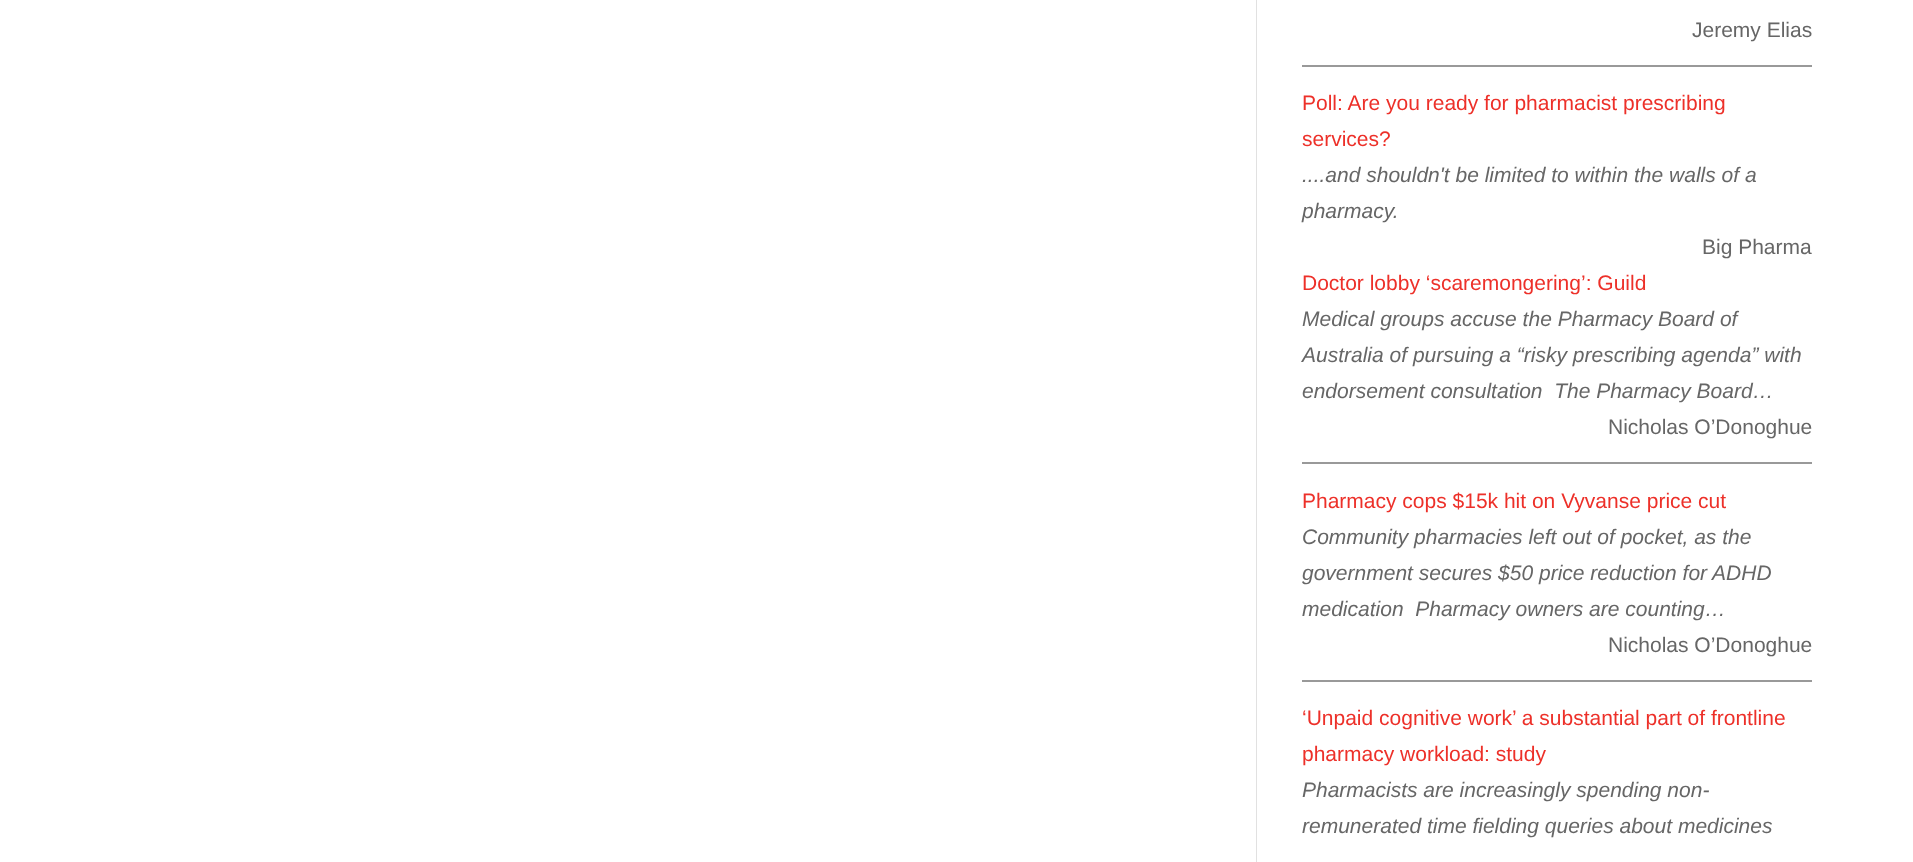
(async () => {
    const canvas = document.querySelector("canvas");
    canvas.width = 1913;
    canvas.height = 862;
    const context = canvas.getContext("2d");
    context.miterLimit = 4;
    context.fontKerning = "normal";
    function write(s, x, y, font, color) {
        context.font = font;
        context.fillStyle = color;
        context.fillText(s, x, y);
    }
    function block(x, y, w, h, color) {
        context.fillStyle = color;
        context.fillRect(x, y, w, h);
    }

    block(0, 0, 1913, 862, "rgb(255, 255, 255)");
    context.fillStyle = "rgb(225, 225, 225)";
    context.beginPath();
    context.moveTo(1256, -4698);
    context.lineTo(1256, 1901);
    context.lineTo(1856, 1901);
    context.lineTo(1856, 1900);
    context.lineTo(1257, 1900);
    context.lineTo(1257, -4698);
    context.closePath();
    context.fill();
    block(1302, 65, 510, 2, "rgb(153, 153, 153)");
    write("Jeremy Elias", 1692, 37, "21px Liberation Sans", "rgb(102, 102, 102)");
    write("Poll: Are you ready for pharmacist prescribing", 1302, 110, "21px Liberation Sans", "rgb(237, 48, 41)");
    write("services?", 1302, 146, "21px Liberation Sans", "rgb(237, 48, 41)");
    write("....and shouldn't be limited to within the walls of a", 1302, 182, "italic 21px Liberation Sans", "rgb(102, 102, 102)");
    write("pharmacy.", 1302, 218, "italic 21px Liberation Sans", "rgb(102, 102, 102)");
    write("Big Pharma", 1702, 254, "21px Liberation Sans", "rgb(102, 102, 102)");
    block(1302, 462, 510, 2, "rgb(153, 153, 153)");
    write("Doctor lobby ‘scaremongering’: Guild", 1302, 290, "21px Liberation Sans", "rgb(237, 48, 41)");
    write("Medical groups accuse the Pharmacy Board of", 1302, 326, "italic 21px Liberation Sans", "rgb(102, 102, 102)");
    write("Australia of pursuing a “risky prescribing agenda” with", 1302, 362, "italic 21px Liberation Sans", "rgb(102, 102, 102)");
    write("endorsement consultation  The Pharmacy Board…", 1302, 398, "italic 21px Liberation Sans", "rgb(102, 102, 102)");
    write("Nicholas O’Donoghue", 1608, 434, "21px Liberation Sans", "rgb(102, 102, 102)");
    block(1302, 680, 510, 2, "rgb(153, 153, 153)");
    write("Pharmacy cops $15k hit on Vyvanse price cut", 1302, 508, "21px Liberation Sans", "rgb(237, 48, 41)");
    write("Community pharmacies left out of pocket, as the", 1302, 544, "italic 21px Liberation Sans", "rgb(102, 102, 102)");
    write("government secures $50 price reduction for ADHD", 1302, 580, "italic 21px Liberation Sans", "rgb(102, 102, 102)");
    write("medication  Pharmacy owners are counting…", 1302, 616, "italic 21px Liberation Sans", "rgb(102, 102, 102)");
    write("Nicholas O’Donoghue", 1608, 652, "21px Liberation Sans", "rgb(102, 102, 102)");
    write("‘Unpaid cognitive work’ a substantial part of frontline", 1302, 725, "21px Liberation Sans", "rgb(237, 48, 41)");
    write("pharmacy workload: study", 1302, 761, "21px Liberation Sans", "rgb(237, 48, 41)");
    write("Pharmacists are increasingly spending non-", 1302, 797, "italic 21px Liberation Sans", "rgb(102, 102, 102)");
    write("remunerated time fielding queries about medicines", 1302, 833, "italic 21px Liberation Sans", "rgb(102, 102, 102)");
})();
